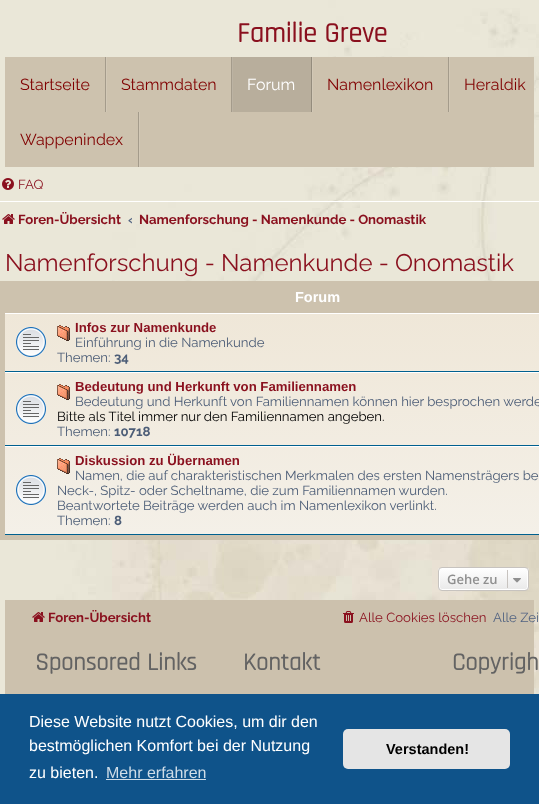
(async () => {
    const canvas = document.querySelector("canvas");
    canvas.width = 539;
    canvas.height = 804;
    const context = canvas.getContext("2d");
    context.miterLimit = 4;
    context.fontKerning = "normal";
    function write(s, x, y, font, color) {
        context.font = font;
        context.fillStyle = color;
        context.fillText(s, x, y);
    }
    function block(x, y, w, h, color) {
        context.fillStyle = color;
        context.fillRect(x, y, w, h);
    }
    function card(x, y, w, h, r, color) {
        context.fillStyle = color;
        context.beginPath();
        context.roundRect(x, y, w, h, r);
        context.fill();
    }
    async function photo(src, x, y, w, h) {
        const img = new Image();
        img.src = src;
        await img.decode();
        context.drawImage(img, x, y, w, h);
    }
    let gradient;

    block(0, 0, 539, 804, "rgb(255, 255, 255)");
    await photo("media/1.png", 0, 0, 539, 5);
    await photo("media/2.png", 0, 5, 539, 689);
    write("Familie Greve", 237, 42, "bold 28px Rajdhani", "rgb(138, 16, 30)");
    block(5, 57, 529, 110, "rgb(205, 194, 174)");
    block(106, 57, 1, 55, "rgb(210, 200, 182)");
    block(105, 57, 1, 55, "rgb(164, 155, 139)");
    write("Startseite", 20, 90, "16px Raleway", "rgb(128, 0, 0)");
    block(232, 57, 1, 55, "rgb(210, 200, 182)");
    block(231, 57, 1, 55, "rgb(164, 155, 139)");
    write("Stammdaten", 121, 90, "16px Raleway", "rgb(128, 0, 0)");
    block(312, 57, 1, 55, "rgb(210, 200, 182)");
    block(232, 57, 79, 55, "rgba(0, 0, 0, 0.1)");
    block(311, 57, 1, 55, "rgb(148, 140, 125)");
    write("Forum", 247, 90, "16px Raleway", "rgb(255, 255, 255)");
    block(449, 57, 1, 55, "rgb(210, 200, 182)");
    block(448, 57, 1, 55, "rgb(164, 155, 139)");
    write("Namenlexikon", 327, 90, "16px Raleway", "rgb(128, 0, 0)");
    write("Heraldik", 464, 90, "16px Raleway", "rgb(128, 0, 0)");
    block(139, 112, 1, 55, "rgb(210, 200, 182)");
    block(138, 112, 1, 55, "rgb(164, 155, 139)");
    write("Wappenindex", 20, 145, "16px Raleway", "rgb(128, 0, 0)");
    await photo("media/3.png", 2, 178, 12, 12);
    write("FAQ", 18, 189, "13.2px Raleway", "rgb(138, 16, 30)");
    block(0, 201, 539, 1, "rgb(255, 255, 255)");
    await photo("media/4.png", 2, 214, 13, 10);
    write("Foren-Übersicht", 18, 224, "bold 13.2px Raleway", "rgb(138, 16, 30)");
    write("‹", 128, 224, "bold 13.2px Raleway", "rgb(83, 100, 130)");
    write("Namenforschung - Namenkunde - Onomastik", 139, 224, "bold 13.2px Raleway", "rgb(138, 16, 30)");
    write("Namenforschung - Namenkunde - Onomastik", 5, 271, "24px Raleway", "rgb(138, 16, 30)");
    block(0, 281, 539, 259, "rgb(205, 194, 174)");
    write("Forum", 295, 302, "bold 14.5px Liberation Sans", "rgb(255, 255, 255)");
    gradient = context.createLinearGradient(318, 313, 318, 535);
    gradient.addColorStop(0, "rgb(239, 231, 216)");
    gradient.addColorStop(1, "rgb(244, 240, 232)");
    context.fillStyle = gradient;
    context.fillRect(5, 314, 534, 220);
    block(5, 313, 534, 1, "rgb(255, 255, 255)");
    block(5, 371, 534, 1, "rgb(0, 96, 143)");
    await photo("media/5.png", 16, 327, 30, 30);
    await photo("media/6.png", 57, 325, 13, 16);
    write("Infos zur Namenkunde", 75, 332, "bold 13.2px Liberation Sans", "rgb(138, 16, 30)");
    write("Einführung in die Namenkunde", 75, 347, "13.2px Raleway", "rgb(76, 93, 119)");
    write("Themen:", 57, 362, "13.2px Raleway", "rgb(76, 93, 119)");
    write("34", 114, 362, "bold 13.2px Raleway", "rgb(76, 93, 119)");
    block(5, 372, 534, 1, "rgb(255, 255, 255)");
    block(5, 445, 534, 1, "rgb(0, 96, 143)");
    await photo("media/7.png", 16, 394, 30, 30);
    await photo("media/8.png", 57, 384, 13, 16);
    write("Bedeutung und Herkunft von Familiennamen", 75, 391, "bold 13.2px Liberation Sans", "rgb(138, 16, 30)");
    write("Bedeutung und Herkunft von Familiennamen können hier besprochen werde", 75, 406, "13.2px Raleway", "rgb(76, 93, 119)");
    write("Bitte als Titel immer nur den Familiennamen angeben.", 57, 421, "13.2px Raleway", "rgb(0, 0, 0)");
    write("Themen:", 57, 436, "13.2px Raleway", "rgb(76, 93, 119)");
    write("10718", 114, 436, "bold 13.2px Raleway", "rgb(76, 93, 119)");
    block(5, 446, 534, 1, "rgb(255, 255, 255)");
    block(5, 534, 534, 1, "rgb(0, 96, 143)");
    await photo("media/9.png", 16, 475, 30, 30);
    await photo("media/10.png", 57, 458, 13, 16);
    write("Diskussion zu Übernamen", 75, 465, "bold 13.2px Liberation Sans", "rgb(138, 16, 30)");
    write("Namen, die auf charakteristischen Merkmalen des ersten Namensträgers be", 75, 480, "13.2px Raleway", "rgb(76, 93, 119)");
    write("Neck-, Spitz- oder Scheltname, die zum Familiennamen wurden.", 57, 495, "13.2px Raleway", "rgb(76, 93, 119)");
    write("Beantwortete Beiträge werden auch im Namenlexikon verlinkt.", 57, 510, "13.2px Raleway", "rgb(76, 93, 119)");
    write("Themen:", 57, 525, "13.2px Raleway", "rgb(76, 93, 119)");
    write("8", 114, 525, "bold 13.2px Raleway", "rgb(76, 93, 119)");
    context.save();
    context.beginPath();
    context.roundRect(438, 567, 91, 24, 4);
    context.clip();
    gradient = context.createLinearGradient(484, 568, 484, 590);
    gradient.addColorStop(0, "rgb(255, 255, 255)");
    gradient.addColorStop(1, "rgb(233, 233, 233)");
    context.fillStyle = gradient;
    context.fillRect(438, 568, 91, 22);
    context.restore();
    context.beginPath();
    context.roundRect(439.5, 568.5, 88, 21, 2.5);
    context.strokeStyle = "rgb(255, 255, 255)";
    context.stroke();
    context.beginPath();
    context.roundRect(438.5, 567.5, 90, 23, 3.5);
    context.strokeStyle = "rgb(199, 195, 191)";
    context.stroke();
    write("Gehe zu", 447, 584, "600 13px Open Sans", "rgb(143, 143, 143)");
    block(507, 570, 1, 18, "rgb(199, 195, 191)");
    await photo("media/11.png", 513, 578, 8, 5);
    block(5, 600, 529, 94, "rgb(204, 193, 173)");
    await photo("media/12.png", 32, 612, 13, 10);
    write("Foren-Übersicht", 48, 622, "bold 13.2px Raleway", "rgb(138, 16, 30)");
    await photo("media/13.png", 343, 611, 11, 12);
    write("Alle Cookies löschen", 359, 622, "13.2px Raleway", "rgb(138, 16, 30)");
    write("Alle Zei", 493, 622, "13.2px Raleway", "rgb(83, 100, 130)");
    write("Sponsored Links", 35, 670, "bold 24.5px Rajdhani", "rgb(99, 99, 99)");
    write("Kontakt", 243, 670, "bold 24.5px Rajdhani", "rgb(99, 99, 99)");
    write("Copyrigh", 452, 670, "bold 24.5px Rajdhani", "rgb(99, 99, 99)");
    block(0, 694, 539, 110, "rgb(15, 83, 138)");
    write("Diese Website nutzt Cookies, um dir den", 29, 727, "16px Liberation Sans", "rgb(255, 255, 255)");
    write("bestmöglichen Komfort bei der Nutzung", 29, 751, "16px Liberation Sans", "rgb(255, 255, 255)");
    write("zu bieten.", 29, 778, "16px Liberation Sans", "rgb(255, 255, 255)");
    write("Mehr erfahren", 106, 778, "16px Liberation Sans", "rgb(207, 221, 232)");
    block(106, 779, 100, 1, "rgb(207, 221, 232)");
    card(343, 729, 167, 40, 5, "rgb(229, 229, 229)");
    write("Verstanden!", 386, 754, "bold 14.5px Liberation Sans", "rgb(0, 0, 0)");
})();
